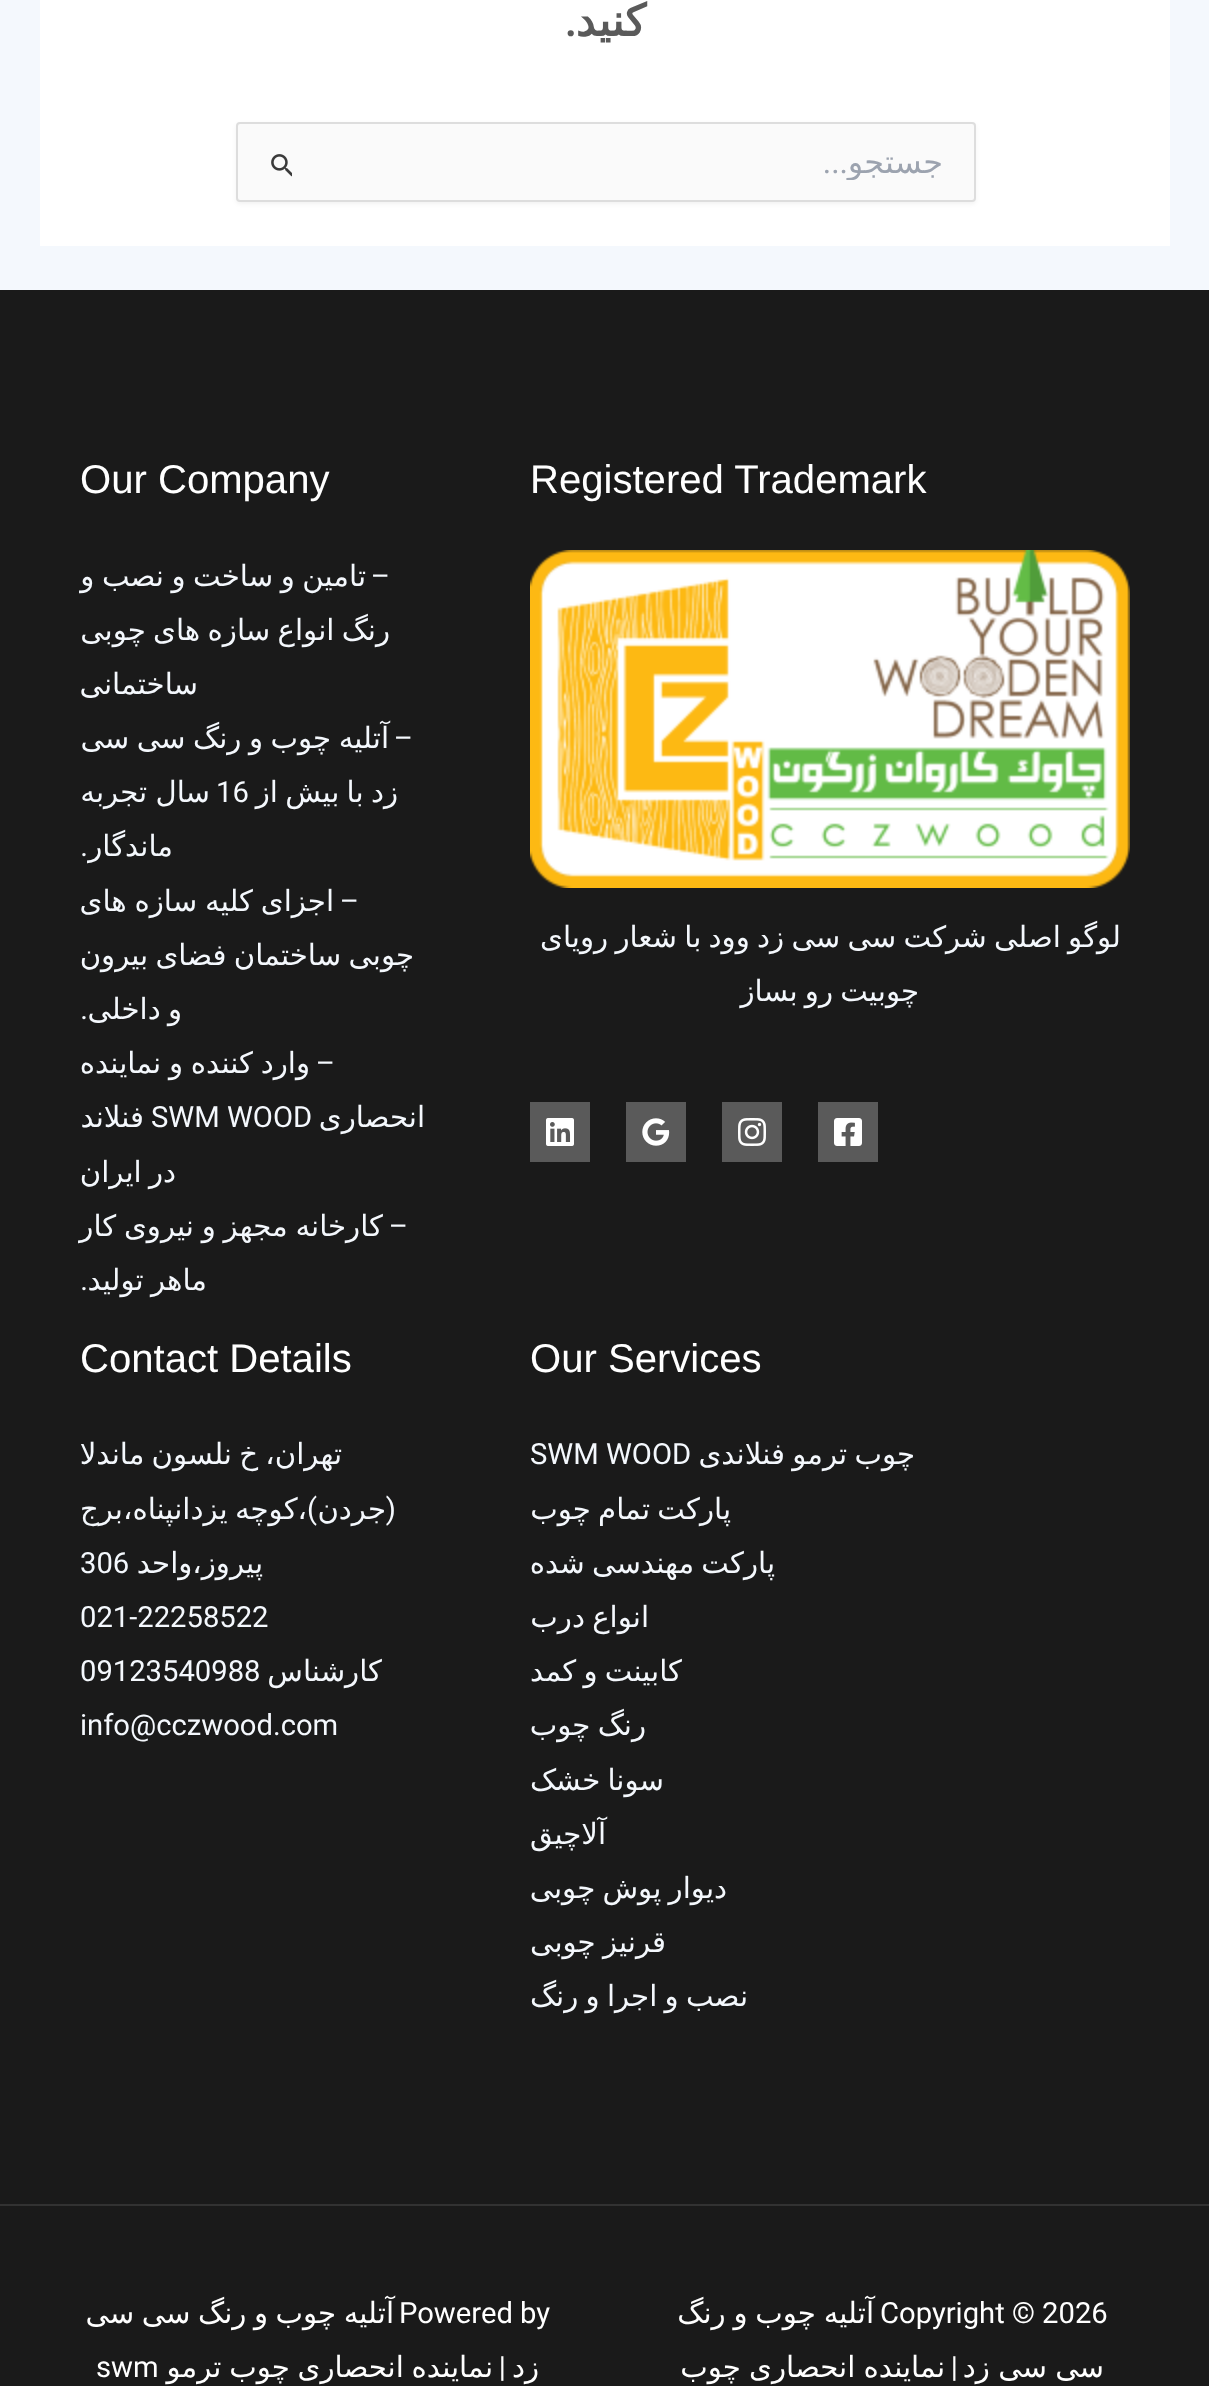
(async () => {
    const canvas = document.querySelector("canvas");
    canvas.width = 1209;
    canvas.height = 2386;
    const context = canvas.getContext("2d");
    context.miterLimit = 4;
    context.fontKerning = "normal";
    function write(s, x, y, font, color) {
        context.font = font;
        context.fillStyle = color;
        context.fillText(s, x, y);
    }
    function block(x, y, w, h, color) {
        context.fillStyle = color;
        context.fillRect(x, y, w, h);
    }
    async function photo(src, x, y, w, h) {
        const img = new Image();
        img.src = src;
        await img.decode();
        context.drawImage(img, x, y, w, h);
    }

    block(0, 0, 1209, 2386, "rgb(244, 248, 253)");
    block(40, 0, 1130, 246, "rgb(255, 255, 255)");
    context.direction = "rtl";
    write("کنید", 646, 36, "bold 44px DejaVu Sans", "rgb(90, 90, 90)");
    write(".", 576, 36, "bold 44px Roboto", "rgb(90, 90, 90)");
    context.fillStyle = "rgba(0, 0, 0, 0.05)";
    context.filter = "blur(2px)";
    context.beginPath();
    context.roundRect(236, 124, 740, 80, 4);
    context.fill();
    context.filter = "none";
    context.fillStyle = "rgb(250, 250, 250)";
    context.beginPath();
    context.roundRect(237, 123, 738, 78, 3);
    context.fill();
    context.strokeStyle = "rgb(221, 221, 221)";
    context.lineWidth = 2;
    context.stroke();
    context.save();
    context.beginPath();
    context.rect(336, 142, 608, 38);
    context.clip();
    write("جستجو", 943, 173, "32px DejaVu Sans", "rgb(156, 163, 175)");
    context.restore();
    write("...", 848, 173, "32px Roboto", "rgb(156, 163, 175)");
    await photo("media/1.png", 271, 154, 21, 23);
    block(0, 290, 1209, 2096, "rgb(26, 26, 26)");
    context.direction = "ltr";
    write("Registered Trademark", 530, 493, "40.1px Liberation Sans", "rgb(255, 255, 255)");
    await photo("media/2.png", 530, 550, 600, 338);
    context.wordSpacing = "-2px";
    context.direction = "rtl";
    write("لوگو اصلی شرکت سی سی زد وود با شعار رویای", 1121, 947, "29.2px DejaVu Sans", "rgb(244, 248, 253)");
    write("چوبیت رو بساز", 919, 1001, "29.2px DejaVu Sans", "rgb(244, 248, 253)");
    block(818, 1102, 60, 60, "rgb(90, 90, 90)");
    await photo("media/3.png", 834, 1118, 28, 28);
    block(722, 1102, 60, 60, "rgb(90, 90, 90)");
    await photo("media/4.png", 738, 1118, 28, 28);
    block(626, 1102, 60, 60, "rgb(90, 90, 90)");
    await photo("media/5.png", 642, 1118, 28, 28);
    block(530, 1102, 60, 60, "rgb(90, 90, 90)");
    await photo("media/6.png", 546, 1118, 28, 28);
    context.wordSpacing = "0px";
    context.direction = "ltr";
    write("Our Company", 80, 493, "40.1px Liberation Sans", "rgb(255, 255, 255)");
    context.direction = "rtl";
    write("–", 390, 586, "29.2px Roboto", "rgb(244, 248, 253)");
    context.wordSpacing = "-1.75px";
    write("تامین و ساخت و نصب و", 366, 586, "29.2px DejaVu Sans", "rgb(244, 248, 253)");
    context.wordSpacing = "-2px";
    write("رنگ انواع سازه های چوبی", 390, 640, "29.2px DejaVu Sans", "rgb(244, 248, 253)");
    context.wordSpacing = "0px";
    write("ساختمانی", 198, 694, "29.2px DejaVu Sans", "rgb(244, 248, 253)");
    write("–", 413, 748, "29.2px Roboto", "rgb(244, 248, 253)");
    context.wordSpacing = "-1.75px";
    write("آتلیه چوب و رنگ سی سی", 389, 748, "29.2px DejaVu Sans", "rgb(244, 248, 253)");
    context.wordSpacing = "-2px";
    write("زد با بیش از", 398, 802, "29.2px DejaVu Sans", "rgb(244, 248, 253)");
    context.wordSpacing = "0px";
    context.direction = "ltr";
    write("16", 216, 802, "29.2px Roboto", "rgb(244, 248, 253)");
    context.wordSpacing = "-1px";
    context.direction = "rtl";
    write("سال تجربه", 210, 802, "29.2px DejaVu Sans", "rgb(244, 248, 253)");
    context.wordSpacing = "0px";
    write("ماندگار", 173, 856, "29.2px DejaVu Sans", "rgb(244, 248, 253)");
    write(".", 88, 856, "29.2px Roboto", "rgb(244, 248, 253)");
    write("–", 359, 911, "29.2px Roboto", "rgb(244, 248, 253)");
    context.wordSpacing = "-1.5px";
    write("اجزای کلیه سازه های", 334, 911, "29.2px DejaVu Sans", "rgb(244, 248, 253)");
    context.wordSpacing = "-2px";
    write("چوبی ساختمان فضای بیرون", 414, 965, "29.2px DejaVu Sans", "rgb(244, 248, 253)");
    write("و داخلی", 182, 1019, "29.2px DejaVu Sans", "rgb(244, 248, 253)");
    context.wordSpacing = "0px";
    write(".", 88, 1019, "29.2px Roboto", "rgb(244, 248, 253)");
    write("–", 335, 1073, "29.2px Roboto", "rgb(244, 248, 253)");
    context.wordSpacing = "-1.5px";
    write("وارد کننده و نماینده", 310, 1073, "29.2px DejaVu Sans", "rgb(244, 248, 253)");
    context.wordSpacing = "0px";
    write("انحصاری", 425, 1127, "29.2px DejaVu Sans", "rgb(244, 248, 253)");
    context.direction = "ltr";
    write("SWM WOOD", 151, 1127, "29.2px Roboto", "rgb(244, 248, 253)");
    context.direction = "rtl";
    write("فنلاند", 144, 1127, "29.2px DejaVu Sans", "rgb(244, 248, 253)");
    context.wordSpacing = "-2px";
    write("در ایران", 176, 1182, "29.2px DejaVu Sans", "rgb(244, 248, 253)");
    context.wordSpacing = "0px";
    write("–", 408, 1236, "29.2px Roboto", "rgb(244, 248, 253)");
    context.wordSpacing = "-1.5px";
    write("کارخانه مجهز و نیروی کار", 383, 1236, "29.2px DejaVu Sans", "rgb(244, 248, 253)");
    context.wordSpacing = "-2px";
    write("ماهر تولید", 207, 1290, "29.2px DejaVu Sans", "rgb(244, 248, 253)");
    context.wordSpacing = "0px";
    write(".", 88, 1290, "29.2px Roboto", "rgb(244, 248, 253)");
    context.direction = "ltr";
    write("Our Services", 530, 1372, "40.1px Liberation Sans", "rgb(255, 255, 255)");
    context.wordSpacing = "-2px";
    context.direction = "rtl";
    write("چوب ترمو فنلاندی", 915, 1464, "29.2px DejaVu Sans", "rgb(244, 248, 253)");
    context.wordSpacing = "0px";
    context.direction = "ltr";
    write("SWM WOOD", 530, 1464, "29.2px Roboto", "rgb(244, 248, 253)");
    context.wordSpacing = "-2px";
    context.direction = "rtl";
    write("پارکت تمام چوب", 731, 1519, "29.2px DejaVu Sans", "rgb(244, 248, 253)");
    write("پارکت مهندسی شده", 775, 1573, "29.2px DejaVu Sans", "rgb(244, 248, 253)");
    write("انواع درب", 649, 1627, "29.2px DejaVu Sans", "rgb(244, 248, 253)");
    write("کابینت و کمد", 682, 1681, "29.2px DejaVu Sans", "rgb(244, 248, 253)");
    write("رنگ چوب", 646, 1735, "29.2px DejaVu Sans", "rgb(244, 248, 253)");
    write("سونا خشک", 664, 1790, "29.2px DejaVu Sans", "rgb(244, 248, 253)");
    context.wordSpacing = "0px";
    write("آلاچیق", 606, 1844, "29.2px DejaVu Sans", "rgb(244, 248, 253)");
    context.wordSpacing = "-2px";
    write("دیوار پوش چوبی", 727, 1898, "29.2px DejaVu Sans", "rgb(244, 248, 253)");
    write("قرنیز چوبی", 666, 1952, "29.2px DejaVu Sans", "rgb(244, 248, 253)");
    write("نصب و اجرا و رنگ", 748, 2006, "29.2px DejaVu Sans", "rgb(244, 248, 253)");
    context.wordSpacing = "0px";
    context.direction = "ltr";
    write("Contact Details", 80, 1372, "40.1px Liberation Sans", "rgb(255, 255, 255)");
    context.wordSpacing = "-2px";
    context.direction = "rtl";
    write("تهران، خ نلسون ماندلا", 342, 1464, "29.2px DejaVu Sans", "rgb(244, 248, 253)");
    context.wordSpacing = "0px";
    write("(", 396, 1519, "29.2px Roboto", "rgb(244, 248, 253)");
    write("جردن", 386, 1519, "29.2px DejaVu Sans", "rgb(244, 248, 253)");
    write(")", 317, 1519, "29.2px Roboto", "rgb(244, 248, 253)");
    context.wordSpacing = "-2px";
    write("،کوچه یزدانپناه،برج", 307, 1519, "29.2px DejaVu Sans", "rgb(244, 248, 253)");
    context.wordSpacing = "0px";
    write("پیروز،واحد", 263, 1573, "29.2px DejaVu Sans", "rgb(244, 248, 253)");
    context.direction = "ltr";
    write("306", 80, 1573, "29.2px Roboto", "rgb(244, 248, 253)");
    write("021-22258522", 80, 1627, "29.2px Roboto", "rgb(244, 248, 253)");
    context.direction = "rtl";
    write("کارشناس", 382, 1681, "29.2px DejaVu Sans", "rgb(244, 248, 253)");
    context.direction = "ltr";
    write("09123540988", 80, 1681, "29.2px Roboto", "rgb(244, 248, 253)");
    write("info@cczwood.com", 80, 1735, "29.2px Roboto", "rgb(244, 248, 253)");
    block(0, 2204, 1209, 2, "rgb(50, 50, 50)");
    write("Copyright © 2026", 880, 2323, "29.2px Roboto", "rgb(255, 255, 255)");
    context.wordSpacing = "-1.5px";
    context.direction = "rtl";
    write("آتلیه چوب و رنگ", 874, 2323, "29.2px DejaVu Sans", "rgb(255, 255, 255)");
    context.wordSpacing = "-1px";
    write("سی سی زد", 1104, 2377, "29.2px DejaVu Sans", "rgb(255, 255, 255)");
    context.wordSpacing = "0px";
    write("|", 958, 2377, "29.2px Roboto", "rgb(255, 255, 255)");
    context.wordSpacing = "-1px";
    write("نماینده انحصاری چوب", 945, 2377, "29.2px DejaVu Sans", "rgb(255, 255, 255)");
    context.wordSpacing = "0px";
    context.direction = "ltr";
    write("Powered by", 399, 2323, "29.2px Roboto", "rgb(255, 255, 255)");
    context.wordSpacing = "-1.75px";
    context.direction = "rtl";
    write("آتلیه چوب و رنگ سی سی", 394, 2323, "29.2px DejaVu Sans", "rgb(255, 255, 255)");
    context.wordSpacing = "0px";
    write("زد", 539, 2377, "29.2px DejaVu Sans", "rgb(255, 255, 255)");
    write("|", 506, 2377, "29.2px Roboto", "rgb(255, 255, 255)");
    context.wordSpacing = "-1.5px";
    write("نماینده انحصاری چوب ترمو", 493, 2377, "29.2px DejaVu Sans", "rgb(255, 255, 255)");
    context.wordSpacing = "0px";
    context.direction = "ltr";
    write("swm", 96, 2377, "29.2px Roboto", "rgb(255, 255, 255)");
})();
